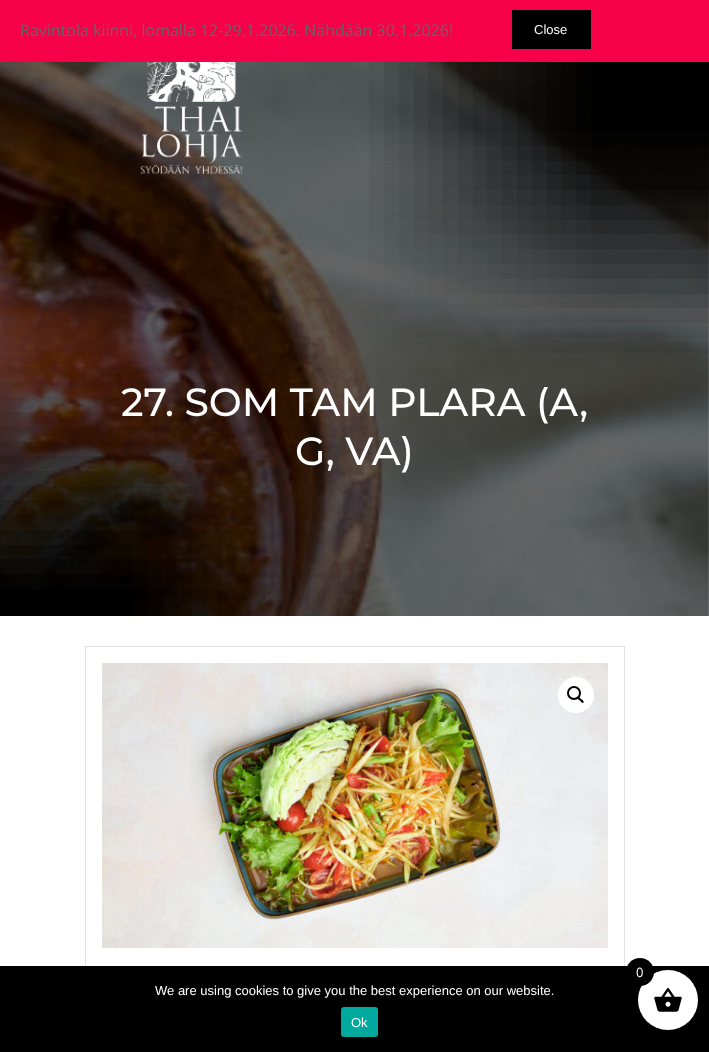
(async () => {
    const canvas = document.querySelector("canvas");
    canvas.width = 709;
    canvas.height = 1052;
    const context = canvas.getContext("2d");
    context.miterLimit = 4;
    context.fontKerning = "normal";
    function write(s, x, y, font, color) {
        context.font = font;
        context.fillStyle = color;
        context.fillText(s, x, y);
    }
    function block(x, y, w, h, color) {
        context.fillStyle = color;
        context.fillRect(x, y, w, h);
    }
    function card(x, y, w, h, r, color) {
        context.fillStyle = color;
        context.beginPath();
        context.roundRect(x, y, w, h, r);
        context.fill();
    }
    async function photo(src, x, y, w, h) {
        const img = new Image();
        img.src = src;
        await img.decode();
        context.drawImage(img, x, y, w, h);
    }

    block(0, 0, 709, 1052, "rgb(255, 255, 255)");
    block(0, 0, 709, 62, "rgb(245, 0, 73)");
    write("Ravintola kiinni, lomalla 12-29.1.2026. Nähdään 30.1.2026!", 20, 36, "16px Open Sans", "rgb(102, 102, 102)");
    block(512, 10, 79, 39, "rgb(0, 0, 0)");
    write("Close", 534, 34, "13px Liberation Sans", "rgb(255, 255, 255)");
    await photo("media/2.png", 0, 62, 709, 554);
    await photo("media/3.png", 0, 62, 709, 554);
    await photo("media/1.png", 140, 62, 103, 112);
    write("27. SOM TAM PLARA (A,", 121, 416, "500 39.25px Montserrat", "rgb(255, 255, 255)");
    write("G, VA)", 295, 465, "500 39.25px Montserrat", "rgb(255, 255, 255)");
    context.strokeStyle = "rgb(224, 225, 225)";
    context.strokeRect(85.5, 646.5, 539, 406);
    await photo("media/4.png", 102, 663, 506, 285);
    context.beginPath();
    context.arc(576, 695, 18, 0, Math.PI * 2);
    context.fill();
    context.beginPath();
    context.arc(574, 693, 6, 0, Math.PI * 2);
    context.strokeStyle = "rgb(0, 0, 0)";
    context.lineWidth = 2;
    context.stroke();
    context.fillStyle = "rgb(0, 0, 0)";
    context.beginPath();
    context.moveTo(577.5, 697);
    context.bezierCurveTo(579, 696, 580.5, 698.5, 581, 699);
    context.bezierCurveTo(582, 699.5, 584.5, 701.5, 583.5, 702.5);
    context.bezierCurveTo(582, 704, 580.5, 701, 580, 700.5);
    context.bezierCurveTo(579, 700, 576.5, 698, 577.5, 697);
    context.closePath();
    context.fill();
    block(0, 966, 709, 86, "rgb(0, 0, 0)");
    context.fillStyle = "rgb(255, 255, 255)";
    context.beginPath();
    context.arc(668, 1000, 30, 0, Math.PI * 2);
    context.fill();
    context.fillStyle = "rgb(0, 0, 0)";
    context.beginPath();
    context.arc(640, 972, 14, 0, Math.PI * 2);
    context.fill();
    write("0", 636, 977, "13px Open Sans", "rgb(255, 255, 255)");
    await photo("media/5.png", 654, 988, 28, 24);
    write("We are using cookies to give you the best experience on our website.", 155, 995, "13px Liberation Sans", "rgb(255, 255, 255)");
    card(341, 1007, 37, 30, 3, "rgb(0, 169, 157)");
    write("Ok", 351, 1027, "13px Liberation Sans", "rgb(255, 255, 255)");
})();
